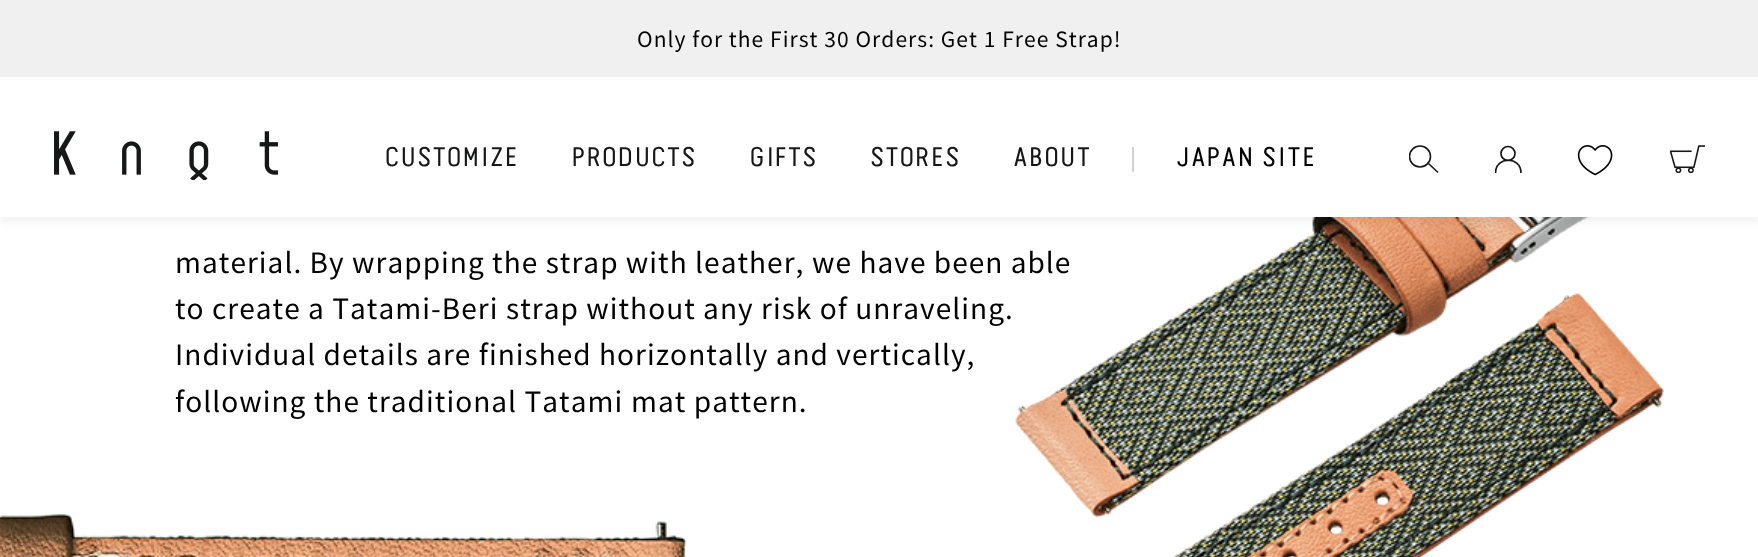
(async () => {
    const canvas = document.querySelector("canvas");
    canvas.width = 1758;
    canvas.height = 557;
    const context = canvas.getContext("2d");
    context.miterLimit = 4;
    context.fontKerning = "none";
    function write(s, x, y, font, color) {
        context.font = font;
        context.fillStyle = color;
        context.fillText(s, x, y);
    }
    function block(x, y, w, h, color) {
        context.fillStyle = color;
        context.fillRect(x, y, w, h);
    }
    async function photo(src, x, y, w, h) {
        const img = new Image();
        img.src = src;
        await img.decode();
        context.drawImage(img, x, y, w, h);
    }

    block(0, 0, 1758, 557, "rgb(255, 255, 255)");
    await photo("media/4.png", 1015, 217, 649, 340);
    context.fillStyle = "rgba(0, 0, 0, 0.06)";
    context.filter = "blur(5px)";
    context.beginPath();
    context.rect(0, 5, 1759, 217);
    context.fill();
    context.filter = "none";
    block(0, 77, 1758, 140, "rgb(255, 255, 255)");
    block(0, 0, 1758, 77, "rgb(240, 240, 240)");
    context.letterSpacing = "1.05px";
    write("Only for the First 30 Orders: Get 1 Free Strap!", 637, 47, "21px Noto Sans JP", "rgb(0, 0, 0)");
    await photo("media/1.png", 54, 131, 224, 49);
    write("CUSTOMIZE", 385, 166, "24.5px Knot", "rgb(22, 23, 23)");
    write("PRODUCTS", 572, 166, "24.5px Knot", "rgb(22, 23, 23)");
    write("GIFTS", 749, 166, "24.5px Knot", "rgb(22, 23, 23)");
    write("STORES", 870, 166, "24.5px Knot", "rgb(22, 23, 23)");
    write("ABOUT", 1013, 166, "24.5px Knot", "rgb(22, 23, 23)");
    block(1132, 147, 2, 25, "rgb(208, 209, 209)");
    context.letterSpacing = "1.25px";
    write("JAPAN SITE", 1175, 166, "24.5px Knot", "rgb(0, 0, 0)");
    context.save();
    context.beginPath();
    context.rect(1409, 145, 30, 28);
    context.clip();
    context.beginPath();
    context.arc(1420, 156.5, 10.5, 0, Math.PI * 2);
    context.strokeStyle = "rgb(22, 23, 23)";
    context.lineWidth = 1.6;
    context.stroke();
    context.restore();
    context.beginPath();
    context.moveTo(1437.5, 172);
    context.lineTo(1429, 164);
    context.strokeStyle = "rgb(22, 23, 23)";
    context.lineWidth = 1.6;
    context.lineCap = "round";
    context.stroke();
    context.beginPath();
    context.arc(1508, 153.5, 7, 0, Math.PI * 2);
    context.lineWidth = 1.7;
    context.stroke();
    context.save();
    context.beginPath();
    context.rect(1495, 145, 28, 28);
    context.clip();
    context.beginPath();
    context.moveTo(1521, 173);
    context.bezierCurveTo(1521, 156, 1495.5, 156, 1495.5, 173);
    context.stroke();
    context.restore();
    await photo("media/2.png", 1577, 145, 36, 31);
    await photo("media/3.png", 1670, 145, 35, 28);
    context.letterSpacing = "1.05px";
    write("material. By wrapping the strap with leather,", 175, 273, "28px Noto Sans JP", "rgb(0, 0, 0)");
    write("we have been able", 812, 273, "28px Noto Sans JP", "rgb(0, 0, 0)");
    write("to create a Tatami-Beri", 175, 319, "28px Noto Sans JP", "rgb(0, 0, 0)");
    write("strap without any risk of unraveling.", 506, 319, "28px Noto Sans JP", "rgb(0, 0, 0)");
    write("Individual details are finished horizontally and vertically,", 175, 365, "28px Noto Sans JP", "rgb(0, 0, 0)");
    write("following the traditional Tatami", 175, 412, "28px Noto Sans JP", "rgb(0, 0, 0)");
    write("mat pattern.", 631, 412, "28px Noto Sans JP", "rgb(0, 0, 0)");
    await photo("media/5.png", 0, 511, 687, 46);
})();
